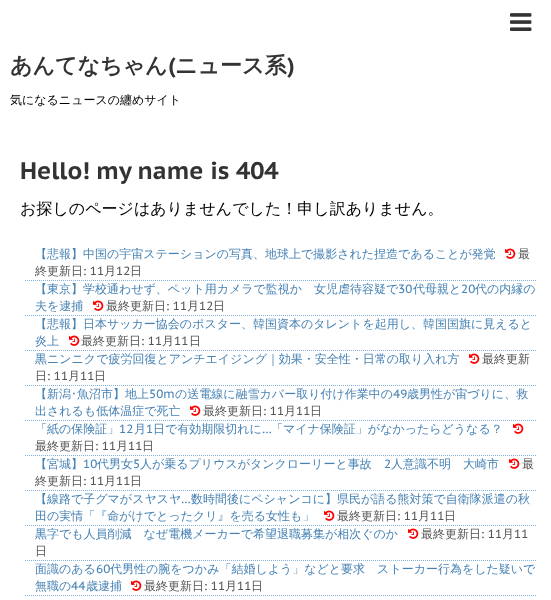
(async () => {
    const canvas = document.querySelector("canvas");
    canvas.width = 551;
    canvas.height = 600;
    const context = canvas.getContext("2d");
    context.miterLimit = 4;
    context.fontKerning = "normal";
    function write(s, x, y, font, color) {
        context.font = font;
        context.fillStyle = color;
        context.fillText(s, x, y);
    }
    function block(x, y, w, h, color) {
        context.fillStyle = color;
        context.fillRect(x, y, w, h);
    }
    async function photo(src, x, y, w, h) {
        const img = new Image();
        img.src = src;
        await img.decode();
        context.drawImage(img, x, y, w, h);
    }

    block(0, 0, 551, 600, "rgb(255, 255, 255)");
    await photo("media/1.png", 510, 13, 22, 18);
    write("あんてなちゃん", 10, 73, "bold 22px WenQuanYi Zen Hei", "rgb(51, 51, 51)");
    write("(", 168, 73, "bold 22px PT Sans Caption", "rgb(51, 51, 51)");
    write("ニュース系", 175, 73, "bold 22px WenQuanYi Zen Hei", "rgb(51, 51, 51)");
    write(")", 287, 73, "bold 22px PT Sans Caption", "rgb(51, 51, 51)");
    write("気になるニュースの纏めサイト", 10, 104, "500 12px WenQuanYi Zen Hei", "rgb(0, 0, 0)");
    write("Hello! my name is 404", 20, 179, "bold 24px PT Sans Caption", "rgb(51, 51, 51)");
    write("お探しのページはありませんでした！申し訳ありません。", 20, 214, "500 16px WenQuanYi Zen Hei", "rgb(0, 0, 0)");
    context.beginPath();
    context.moveTo(25, 280.5);
    context.lineTo(536, 280.5);
    context.strokeStyle = "rgb(132, 178, 224)";
    context.setLineDash([1, 1]);
    context.stroke();
    write("【悲報】中国の宇宙ステーションの写真、地球上で撮影された捏造であることが発覚", 35, 258, "500 12px WenQuanYi Zen Hei", "rgb(70, 130, 180)");
    await photo("media/2.png", 505, 248, 11, 11);
    write("最", 518, 258, "500 12px WenQuanYi Zen Hei", "rgb(85, 85, 85)");
    write("終更新日", 35, 275, "500 12px WenQuanYi Zen Hei", "rgb(85, 85, 85)");
    write(": 11", 83, 275, "12px PT Sans Caption", "rgb(85, 85, 85)");
    write("月", 104, 275, "500 12px WenQuanYi Zen Hei", "rgb(85, 85, 85)");
    write("12", 116, 275, "12px PT Sans Caption", "rgb(85, 85, 85)");
    write("日", 130, 275, "500 12px WenQuanYi Zen Hei", "rgb(85, 85, 85)");
    context.beginPath();
    context.moveTo(25, 315.5);
    context.lineTo(536, 315.5);
    context.stroke();
    write("【東京】学校通わせず、ペット用カメラで監視か　女児虐待容疑で", 35, 293, "500 12px WenQuanYi Zen Hei", "rgb(70, 130, 180)");
    write("30", 398, 293, "12px PT Sans Caption", "rgb(70, 130, 180)");
    write("代母親と", 413, 293, "500 12px WenQuanYi Zen Hei", "rgb(70, 130, 180)");
    write("20", 461, 293, "12px PT Sans Caption", "rgb(70, 130, 180)");
    write("代の内縁の", 475, 293, "500 12px WenQuanYi Zen Hei", "rgb(70, 130, 180)");
    write("夫を逮捕", 35, 310, "500 12px WenQuanYi Zen Hei", "rgb(70, 130, 180)");
    await photo("media/2.png", 93, 300, 11, 11);
    write("最終更新日", 106, 310, "500 12px WenQuanYi Zen Hei", "rgb(85, 85, 85)");
    write(": 11", 166, 310, "12px PT Sans Caption", "rgb(85, 85, 85)");
    write("月", 187, 310, "500 12px WenQuanYi Zen Hei", "rgb(85, 85, 85)");
    write("12", 199, 310, "12px PT Sans Caption", "rgb(85, 85, 85)");
    write("日", 213, 310, "500 12px WenQuanYi Zen Hei", "rgb(85, 85, 85)");
    context.beginPath();
    context.moveTo(25, 350.5);
    context.lineTo(536, 350.5);
    context.stroke();
    write("【悲報】日本サッカー協会のポスター、韓国資本のタレントを起用し、韓国国旗に見えると", 35, 328, "500 12px WenQuanYi Zen Hei", "rgb(70, 130, 180)");
    write("炎上", 35, 345, "500 12px WenQuanYi Zen Hei", "rgb(70, 130, 180)");
    await photo("media/2.png", 69, 335, 11, 11);
    write("最終更新日", 81, 345, "500 12px WenQuanYi Zen Hei", "rgb(85, 85, 85)");
    write(": 11", 141, 345, "12px PT Sans Caption", "rgb(85, 85, 85)");
    write("月", 162, 345, "500 12px WenQuanYi Zen Hei", "rgb(85, 85, 85)");
    write("11", 174, 345, "12px PT Sans Caption", "rgb(85, 85, 85)");
    write("日", 189, 345, "500 12px WenQuanYi Zen Hei", "rgb(85, 85, 85)");
    context.beginPath();
    context.moveTo(25, 385.5);
    context.lineTo(536, 385.5);
    context.stroke();
    write("黒ニンニクで疲労回復とアンチエイジング｜効果・安全性・日常の取り入れ方", 35, 363, "500 12px WenQuanYi Zen Hei", "rgb(70, 130, 180)");
    await photo("media/2.png", 469, 353, 11, 11);
    write("最終更新", 482, 363, "500 12px WenQuanYi Zen Hei", "rgb(85, 85, 85)");
    write("日", 35, 380, "500 12px WenQuanYi Zen Hei", "rgb(85, 85, 85)");
    write(": 11", 47, 380, "12px PT Sans Caption", "rgb(85, 85, 85)");
    write("月", 68, 380, "500 12px WenQuanYi Zen Hei", "rgb(85, 85, 85)");
    write("11", 80, 380, "12px PT Sans Caption", "rgb(85, 85, 85)");
    write("日", 94, 380, "500 12px WenQuanYi Zen Hei", "rgb(85, 85, 85)");
    context.beginPath();
    context.moveTo(25, 420.5);
    context.lineTo(536, 420.5);
    context.stroke();
    write("【新潟", 35, 398, "500 12px WenQuanYi Zen Hei", "rgb(70, 130, 180)");
    write("･", 71, 398, "12px IPAPGothic", "rgb(70, 130, 180)");
    write("魚沼市】地上", 77, 398, "500 12px WenQuanYi Zen Hei", "rgb(70, 130, 180)");
    write("50m", 149, 398, "12px PT Sans Caption", "rgb(70, 130, 180)");
    write("の送電線に融雪カバー取り付け作業中の", 175, 398, "500 12px WenQuanYi Zen Hei", "rgb(70, 130, 180)");
    write("49", 393, 398, "12px PT Sans Caption", "rgb(70, 130, 180)");
    write("歳男性が宙づりに、救", 407, 398, "500 12px WenQuanYi Zen Hei", "rgb(70, 130, 180)");
    write("出されるも低体温症で死亡", 35, 415, "500 12px WenQuanYi Zen Hei", "rgb(70, 130, 180)");
    await photo("media/2.png", 190, 405, 11, 11);
    write("最終更新日", 203, 415, "500 12px WenQuanYi Zen Hei", "rgb(85, 85, 85)");
    write(": 11", 263, 415, "12px PT Sans Caption", "rgb(85, 85, 85)");
    write("月", 284, 415, "500 12px WenQuanYi Zen Hei", "rgb(85, 85, 85)");
    write("11", 296, 415, "12px PT Sans Caption", "rgb(85, 85, 85)");
    write("日", 310, 415, "500 12px WenQuanYi Zen Hei", "rgb(85, 85, 85)");
    context.beginPath();
    context.moveTo(25, 455.5);
    context.lineTo(536, 455.5);
    context.stroke();
    write("「紙の保険証」", 35, 433, "500 12px WenQuanYi Zen Hei", "rgb(70, 130, 180)");
    write("12", 119, 433, "12px PT Sans Caption", "rgb(70, 130, 180)");
    write("月", 134, 433, "500 12px WenQuanYi Zen Hei", "rgb(70, 130, 180)");
    write("1", 146, 433, "12px PT Sans Caption", "rgb(70, 130, 180)");
    write("日で有効期限切れに", 153, 433, "500 12px WenQuanYi Zen Hei", "rgb(70, 130, 180)");
    write("…", 262, 433, "12px PT Sans Caption", "rgb(70, 130, 180)");
    write("「マイナ保険証」がなかったらどうなる？", 271, 433, "500 12px WenQuanYi Zen Hei", "rgb(70, 130, 180)");
    await photo("media/2.png", 513, 423, 11, 11);
    write("最終更新日", 35, 450, "500 12px WenQuanYi Zen Hei", "rgb(85, 85, 85)");
    write(": 11", 95, 450, "12px PT Sans Caption", "rgb(85, 85, 85)");
    write("月", 116, 450, "500 12px WenQuanYi Zen Hei", "rgb(85, 85, 85)");
    write("11", 128, 450, "12px PT Sans Caption", "rgb(85, 85, 85)");
    write("日", 142, 450, "500 12px WenQuanYi Zen Hei", "rgb(85, 85, 85)");
    context.beginPath();
    context.moveTo(25, 490.5);
    context.lineTo(536, 490.5);
    context.stroke();
    write("【宮城】", 35, 468, "500 12px WenQuanYi Zen Hei", "rgb(70, 130, 180)");
    write("10", 83, 468, "12px PT Sans Caption", "rgb(70, 130, 180)");
    write("代男女", 97, 468, "500 12px WenQuanYi Zen Hei", "rgb(70, 130, 180)");
    write("5", 133, 468, "12px PT Sans Caption", "rgb(70, 130, 180)");
    write("人が乗るプリウスがタンクローリーと事故", 140, 468, "500 12px WenQuanYi Zen Hei", "rgb(70, 130, 180)");
    write("2", 384, 468, "12px PT Sans Caption", "rgb(70, 130, 180)");
    write("人意識不明　大崎市", 391, 468, "500 12px WenQuanYi Zen Hei", "rgb(70, 130, 180)");
    await photo("media/2.png", 509, 458, 11, 11);
    write("最", 522, 468, "500 12px WenQuanYi Zen Hei", "rgb(85, 85, 85)");
    write("終更新日", 35, 485, "500 12px WenQuanYi Zen Hei", "rgb(85, 85, 85)");
    write(": 11", 83, 485, "12px PT Sans Caption", "rgb(85, 85, 85)");
    write("月", 104, 485, "500 12px WenQuanYi Zen Hei", "rgb(85, 85, 85)");
    write("11", 116, 485, "12px PT Sans Caption", "rgb(85, 85, 85)");
    write("日", 130, 485, "500 12px WenQuanYi Zen Hei", "rgb(85, 85, 85)");
    context.beginPath();
    context.moveTo(25, 525.5);
    context.lineTo(536, 525.5);
    context.stroke();
    write("【線路で子グマがスヤスヤ", 35, 503, "500 12px WenQuanYi Zen Hei", "rgb(70, 130, 180)");
    write("…", 181, 503, "12px PT Sans Caption", "rgb(70, 130, 180)");
    write("数時間後にペシャンコに】県民が語る熊対策で自衛隊派遣の秋", 191, 503, "500 12px WenQuanYi Zen Hei", "rgb(70, 130, 180)");
    write("田の実情「『命がけでとったクリ』を売る女性も」", 35, 520, "500 12px WenQuanYi Zen Hei", "rgb(70, 130, 180)");
    await photo("media/2.png", 324, 510, 11, 11);
    write("最終更新日", 337, 520, "500 12px WenQuanYi Zen Hei", "rgb(85, 85, 85)");
    write(": 11", 397, 520, "12px PT Sans Caption", "rgb(85, 85, 85)");
    write("月", 418, 520, "500 12px WenQuanYi Zen Hei", "rgb(85, 85, 85)");
    write("11", 430, 520, "12px PT Sans Caption", "rgb(85, 85, 85)");
    write("日", 444, 520, "500 12px WenQuanYi Zen Hei", "rgb(85, 85, 85)");
    context.beginPath();
    context.moveTo(25, 560.5);
    context.lineTo(536, 560.5);
    context.stroke();
    write("黒字でも人員削減　なぜ電機メーカーで希望退職募集が相次ぐのか", 35, 538, "500 12px WenQuanYi Zen Hei", "rgb(70, 130, 180)");
    await photo("media/2.png", 408, 528, 11, 11);
    write("最終更新日", 421, 538, "500 12px WenQuanYi Zen Hei", "rgb(85, 85, 85)");
    write(": 11", 481, 538, "12px PT Sans Caption", "rgb(85, 85, 85)");
    write("月", 502, 538, "500 12px WenQuanYi Zen Hei", "rgb(85, 85, 85)");
    write("11", 514, 538, "12px PT Sans Caption", "rgb(85, 85, 85)");
    write("日", 35, 555, "500 12px WenQuanYi Zen Hei", "rgb(85, 85, 85)");
    context.beginPath();
    context.moveTo(25, 595.5);
    context.lineTo(536, 595.5);
    context.stroke();
    write("面識のある", 35, 573, "500 12px WenQuanYi Zen Hei", "rgb(70, 130, 180)");
    write("60", 96, 573, "12px PT Sans Caption", "rgb(70, 130, 180)");
    write("代男性の腕をつかみ「結婚しよう」などと要求　ストーカー行為をした疑いで", 110, 573, "500 12px WenQuanYi Zen Hei", "rgb(70, 130, 180)");
    write("無職の", 35, 590, "500 12px WenQuanYi Zen Hei", "rgb(70, 130, 180)");
    write("44", 71, 590, "12px PT Sans Caption", "rgb(70, 130, 180)");
    write("歳逮捕", 86, 590, "500 12px WenQuanYi Zen Hei", "rgb(70, 130, 180)");
    await photo("media/2.png", 131, 580, 11, 11);
    write("最終更新日", 144, 590, "500 12px WenQuanYi Zen Hei", "rgb(85, 85, 85)");
    write(": 11", 204, 590, "12px PT Sans Caption", "rgb(85, 85, 85)");
    write("月", 225, 590, "500 12px WenQuanYi Zen Hei", "rgb(85, 85, 85)");
    write("11", 237, 590, "12px PT Sans Caption", "rgb(85, 85, 85)");
    write("日", 251, 590, "500 12px WenQuanYi Zen Hei", "rgb(85, 85, 85)");
})();
